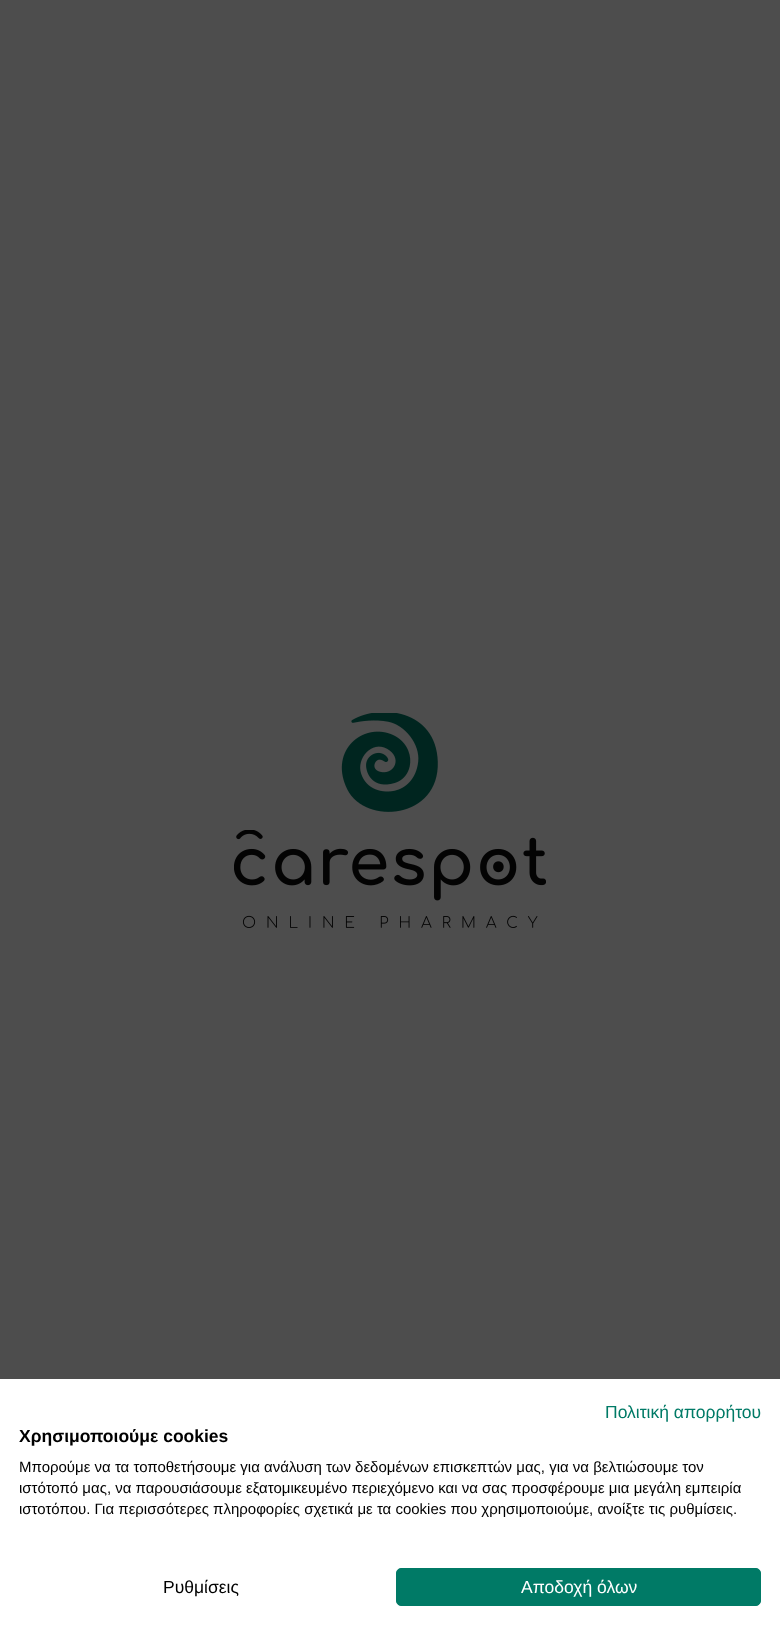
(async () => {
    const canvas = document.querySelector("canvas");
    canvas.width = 780;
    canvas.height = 1639;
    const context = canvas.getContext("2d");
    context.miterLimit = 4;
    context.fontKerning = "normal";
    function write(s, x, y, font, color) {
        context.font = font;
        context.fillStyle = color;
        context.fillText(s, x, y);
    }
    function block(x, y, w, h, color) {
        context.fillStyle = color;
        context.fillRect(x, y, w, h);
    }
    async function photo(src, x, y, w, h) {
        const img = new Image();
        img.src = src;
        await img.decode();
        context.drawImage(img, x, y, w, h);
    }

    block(0, 0, 780, 1639, "rgb(77, 77, 77)");
    await photo("media/1.png", 341, 713, 97, 99);
    await photo("media/2.png", 234, 830, 312, 98);
    block(0, 1379, 780, 260, "rgb(255, 255, 255)");
    write("Πολιτική απορρήτου", 605, 1418, "17.5px Liberation Sans", "rgb(0, 122, 102)");
    write("Χρησιμοποιούμε cookies", 19, 1442, "bold 17.5px Liberation Sans", "rgb(0, 0, 0)");
    write("Μπορούμε να τα τοποθετήσουμε για ανάλυση των δεδομένων επισκεπτών μας, για να βελτιώσουμε τον", 19, 1472, "15px Liberation Sans", "rgb(0, 0, 0)");
    write("ιστότοπό μας, να παρουσιάσουμε εξατομικευμένο περιεχόμενο και να σας προσφέρουμε μια μεγάλη εμπειρία", 19, 1493, "15px Liberation Sans", "rgb(0, 0, 0)");
    write("ιστοτόπου. Για περισσότερες πληροφορίες σχετικά με τα cookies που χρησιμοποιούμε, ανοίξτε τις ρυθμίσεις.", 19, 1514, "15px Liberation Sans", "rgb(0, 0, 0)");
    write("Ρυθμίσεις", 163, 1593, "17.5px Liberation Sans", "rgb(0, 0, 0)");
    context.fillStyle = "rgb(0, 122, 102)";
    context.beginPath();
    context.roundRect(396.5, 1568.5, 364, 37, 4.5);
    context.fill();
    context.strokeStyle = "rgb(0, 122, 102)";
    context.stroke();
    write("Αποδοχή όλων", 521, 1593, "17.5px Liberation Sans", "rgb(255, 255, 255)");
})();
